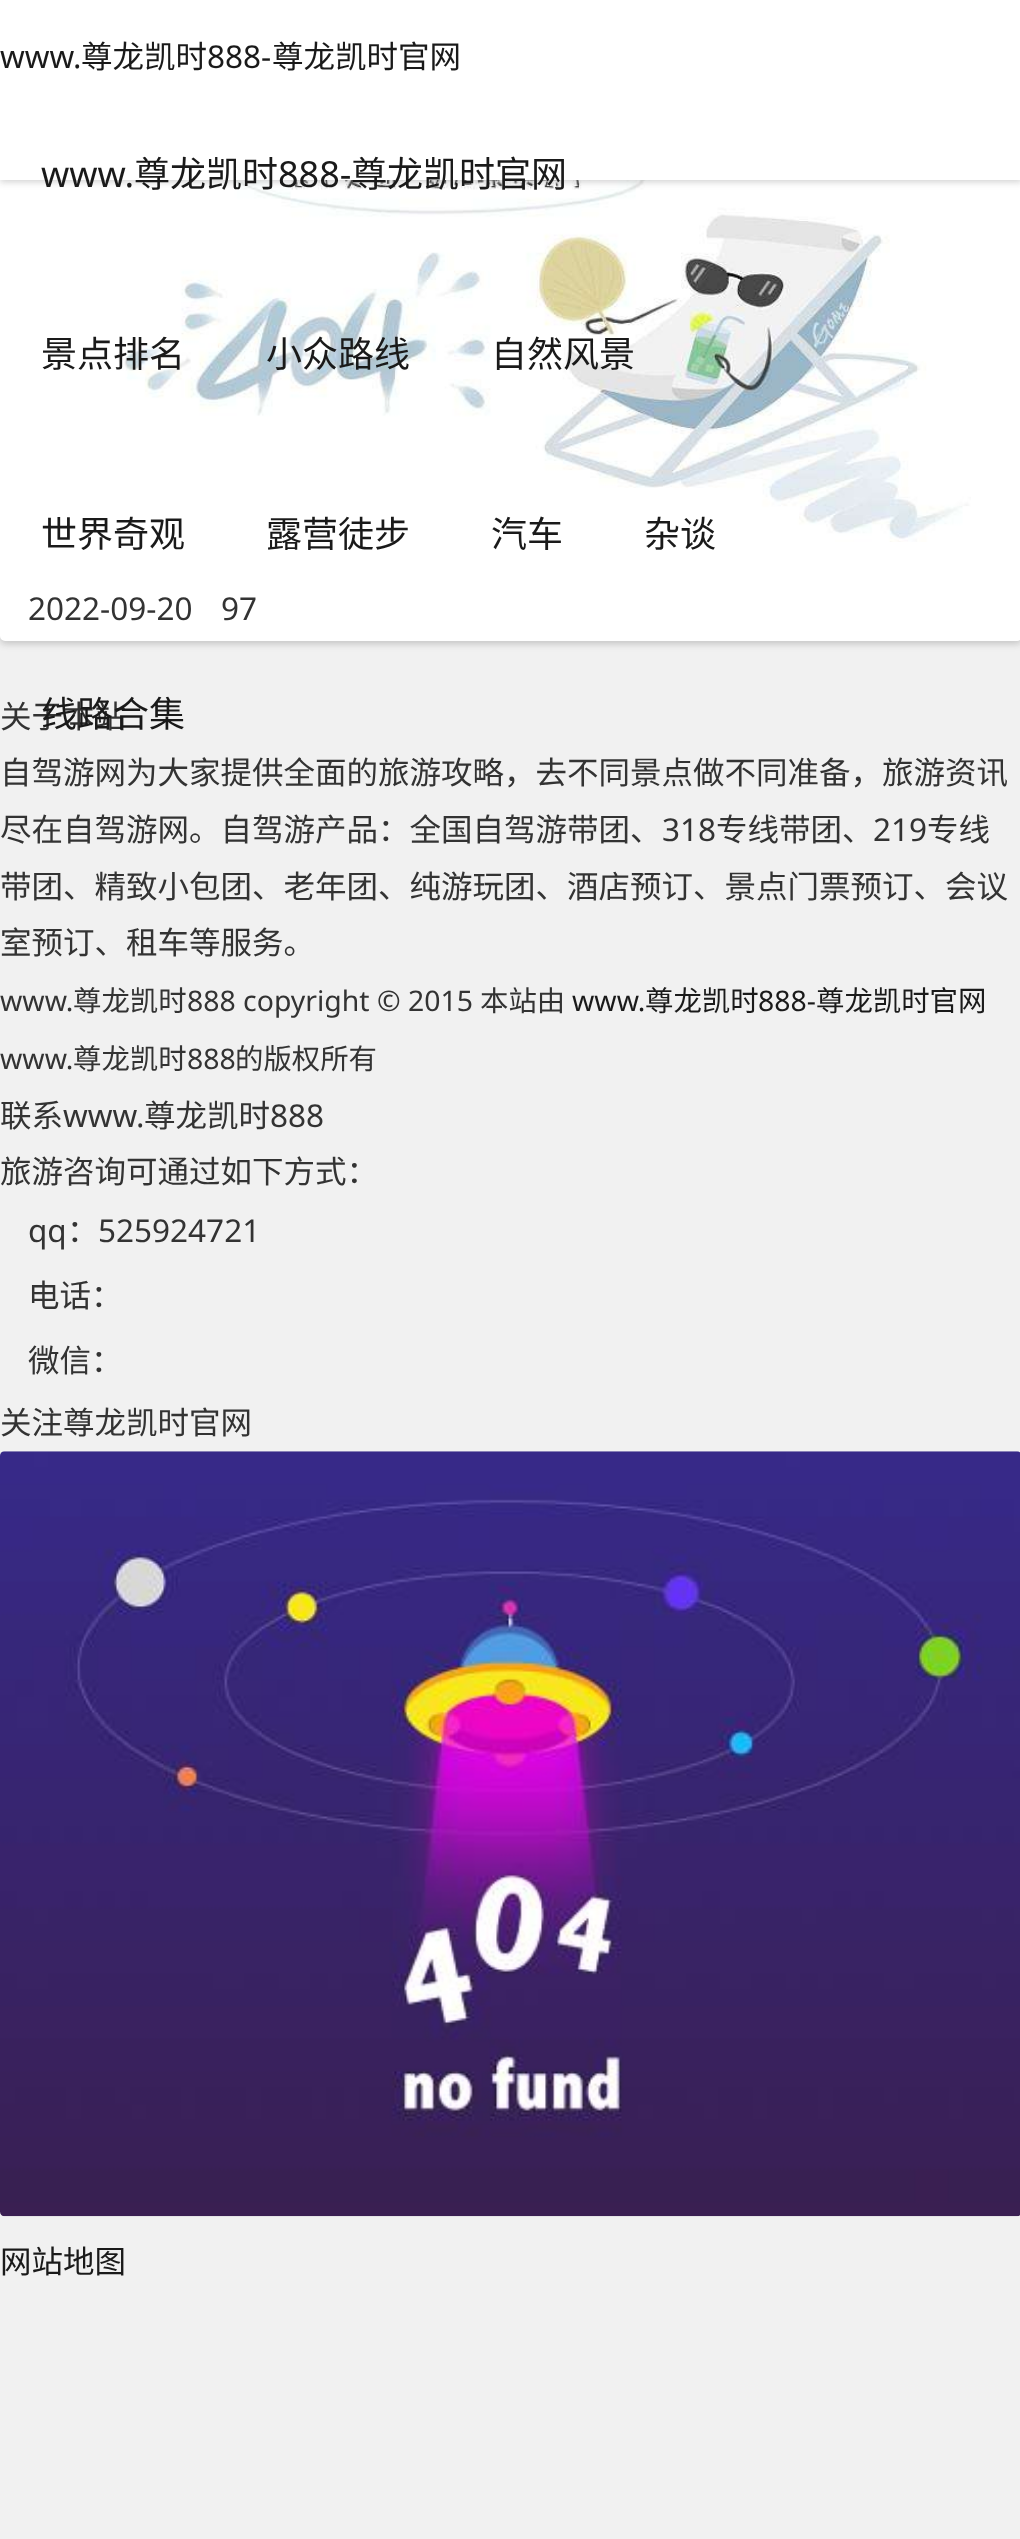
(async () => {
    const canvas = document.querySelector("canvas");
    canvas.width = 1020;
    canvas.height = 2539;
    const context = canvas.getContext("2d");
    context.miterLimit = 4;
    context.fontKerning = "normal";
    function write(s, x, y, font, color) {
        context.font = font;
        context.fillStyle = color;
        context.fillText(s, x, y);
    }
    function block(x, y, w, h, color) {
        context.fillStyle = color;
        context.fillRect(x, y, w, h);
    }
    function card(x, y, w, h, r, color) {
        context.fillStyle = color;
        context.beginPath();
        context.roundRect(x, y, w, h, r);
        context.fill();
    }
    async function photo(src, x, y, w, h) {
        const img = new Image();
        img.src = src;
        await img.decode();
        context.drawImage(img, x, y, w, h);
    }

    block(0, 0, 1020, 2539, "rgb(241, 241, 241)");
    context.fillStyle = "rgba(26, 26, 26, 0.2)";
    context.filter = "blur(3.5px)";
    context.beginPath();
    context.roundRect(0, 110, 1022, 534, 5);
    context.fill();
    context.filter = "none";
    card(0, 108, 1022, 533, 5, "rgb(255, 255, 255)");
    await photo("media/1.png", 0, 180, 971, 362);
    context.fillStyle = "rgba(26, 26, 26, 0.2)";
    context.filter = "blur(3.5px)";
    context.beginPath();
    context.rect(0, 2, 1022, 180);
    context.fill();
    context.filter = "none";
    block(0, 0, 1020, 180, "rgb(255, 255, 255)");
    write("www.", 0, 68, "31.5px Noto Sans", "rgb(26, 26, 26)");
    write("尊龙凯时", 81, 68, "31.5px Noto Sans CJK SC", "rgb(26, 26, 26)");
    write("888-", 207, 68, "31.5px Noto Sans", "rgb(26, 26, 26)");
    write("尊龙凯时官网", 272, 68, "31.5px Noto Sans CJK SC", "rgb(26, 26, 26)");
    write("www.", 41, 187, "36px Noto Sans", "rgb(26, 26, 26)");
    write("尊龙凯时", 134, 187, "36px Noto Sans CJK SC", "rgb(26, 26, 26)");
    write("888-", 278, 187, "36px Noto Sans", "rgb(26, 26, 26)");
    write("尊龙凯时官网", 351, 187, "36px Noto Sans CJK SC", "rgb(26, 26, 26)");
    write("景点排名", 41, 367, "36px Noto Sans CJK SC", "rgb(26, 26, 26)");
    write("小众路线", 266, 367, "36px Noto Sans CJK SC", "rgb(26, 26, 26)");
    write("自然风景", 491, 367, "36px Noto Sans CJK SC", "rgb(26, 26, 26)");
    write("世界奇观", 41, 547, "36px Noto Sans CJK SC", "rgb(26, 26, 26)");
    write("露营徒步", 266, 547, "36px Noto Sans CJK SC", "rgb(26, 26, 26)");
    write("汽车", 491, 547, "36px Noto Sans CJK SC", "rgb(26, 26, 26)");
    write("杂谈", 644, 547, "36px Noto Sans CJK SC", "rgb(26, 26, 26)");
    write("关于本站", 0, 728, "31.5px Noto Sans CJK SC", "rgb(51, 51, 51)");
    write("线路合集", 41, 727, "36px Noto Sans CJK SC", "rgb(26, 26, 26)");
    write("2022-09-20", 28, 620, "31.5px Noto Sans", "rgb(51, 51, 51)");
    write("97", 221, 620, "31.5px Noto Sans", "rgb(51, 51, 51)");
    write("自驾游网为大家提供全面的旅游攻略，去不同景点做不同准备，旅游资讯", 0, 784, "31.5px Noto Sans CJK SC", "rgb(51, 51, 51)");
    write("尽在自驾游网。自驾游产品：全国自驾游带团、", 0, 841, "31.5px Noto Sans CJK SC", "rgb(51, 51, 51)");
    write("318", 662, 841, "31.5px Noto Sans", "rgb(51, 51, 51)");
    write("专线带团、", 716, 841, "31.5px Noto Sans CJK SC", "rgb(51, 51, 51)");
    write("219", 873, 841, "31.5px Noto Sans", "rgb(51, 51, 51)");
    write("专线", 927, 841, "31.5px Noto Sans CJK SC", "rgb(51, 51, 51)");
    write("带团、精致小包团、老年团、纯游玩团、酒店预订、景点门票预订、会议", 0, 898, "31.5px Noto Sans CJK SC", "rgb(51, 51, 51)");
    write("室预订、租车等服务。", 0, 954, "31.5px Noto Sans CJK SC", "rgb(51, 51, 51)");
    write("www.", 0, 1011, "28.4px Noto Sans", "rgb(51, 51, 51)");
    write("尊龙凯时", 73, 1011, "28.4px Noto Sans CJK SC", "rgb(51, 51, 51)");
    write("888 copyright © 2015", 187, 1011, "28.4px Noto Sans", "rgb(51, 51, 51)");
    write("本站由", 480, 1011, "28.4px Noto Sans CJK SC", "rgb(51, 51, 51)");
    write("www.", 572, 1011, "28.4px Noto Sans", "rgb(26, 26, 26)");
    write("尊龙凯时", 645, 1011, "28.4px Noto Sans CJK SC", "rgb(26, 26, 26)");
    write("888-", 758, 1011, "28.4px Noto Sans", "rgb(26, 26, 26)");
    write("尊龙凯时官网", 816, 1011, "28.4px Noto Sans CJK SC", "rgb(26, 26, 26)");
    write("www.", 0, 1069, "28.4px Noto Sans", "rgb(51, 51, 51)");
    write("尊龙凯时", 73, 1069, "28.4px Noto Sans CJK SC", "rgb(51, 51, 51)");
    write("888", 187, 1069, "28.4px Noto Sans", "rgb(51, 51, 51)");
    write("的版权所有", 235, 1069, "28.4px Noto Sans CJK SC", "rgb(51, 51, 51)");
    write("联系", 0, 1127, "31.5px Noto Sans CJK SC", "rgb(51, 51, 51)");
    write("www.", 63, 1127, "31.5px Noto Sans", "rgb(51, 51, 51)");
    write("尊龙凯时", 144, 1127, "31.5px Noto Sans CJK SC", "rgb(51, 51, 51)");
    write("888", 270, 1127, "31.5px Noto Sans", "rgb(51, 51, 51)");
    write("旅游咨询可通过如下方式：", 0, 1183, "31.5px Noto Sans CJK SC", "rgb(51, 51, 51)");
    write("qq", 28, 1242, "31.5px Noto Sans", "rgb(51, 51, 51)");
    write("：", 67, 1242, "31.5px Noto Sans CJK SC", "rgb(51, 51, 51)");
    write("525924721", 98, 1242, "31.5px Noto Sans", "rgb(51, 51, 51)");
    write("电话：", 28, 1307, "31.5px Noto Sans CJK SC", "rgb(51, 51, 51)");
    write("微信：", 28, 1372, "31.5px Noto Sans CJK SC", "rgb(51, 51, 51)");
    write("关注尊龙凯时官网", 0, 1434, "31.5px Noto Sans CJK SC", "rgb(51, 51, 51)");
    await photo("media/2.png", 0, 1451, 1020, 766);
    write("网站地图", 0, 2273, "31.5px Noto Sans CJK SC", "rgb(26, 26, 26)");
})();
